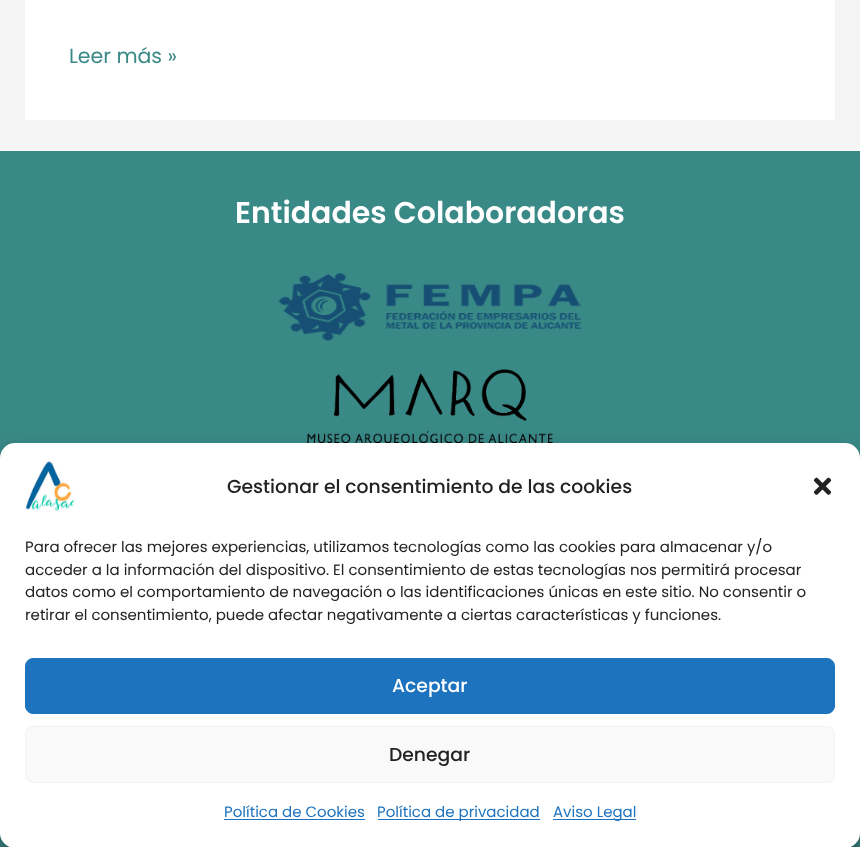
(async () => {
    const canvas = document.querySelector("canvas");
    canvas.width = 860;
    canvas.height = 847;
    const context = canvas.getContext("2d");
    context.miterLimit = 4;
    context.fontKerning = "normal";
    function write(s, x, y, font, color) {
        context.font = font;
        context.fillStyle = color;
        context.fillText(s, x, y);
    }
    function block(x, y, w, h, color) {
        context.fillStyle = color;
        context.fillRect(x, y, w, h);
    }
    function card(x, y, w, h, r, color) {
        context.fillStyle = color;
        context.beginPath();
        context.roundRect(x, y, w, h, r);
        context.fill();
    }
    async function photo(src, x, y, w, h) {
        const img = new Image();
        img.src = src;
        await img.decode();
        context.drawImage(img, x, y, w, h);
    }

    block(0, 0, 860, 847, "rgb(245, 245, 245)");
    block(25, 0, 810, 120, "rgb(255, 255, 255)");
    write("Leer más »", 69, 63, "20.5px Poppins", "rgb(57, 137, 135)");
    block(0, 151, 860, 696, "rgb(57, 137, 135)");
    write("Entidades Colaboradoras", 235, 223, "600 30px Poppins", "rgb(255, 255, 255)");
    await photo("media/1.png", 278, 273, 304, 68);
    await photo("media/2.png", 307, 369, 246, 74);
    context.fillStyle = "rgba(0, 0, 0, 0.23)";
    context.filter = "blur(4px)";
    context.beginPath();
    context.roundRect(0, 450, 860, 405, 15);
    context.fill();
    context.filter = "none";
    context.fillStyle = "rgba(0, 0, 0, 0.19)";
    context.filter = "blur(12.5px)";
    context.beginPath();
    context.roundRect(0, 455, 860, 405, 15);
    context.fill();
    context.filter = "none";
    card(0, 443, 860, 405, 15, "rgb(255, 255, 255)");
    await photo("media/3.png", 25, 461, 50, 50);
    write("Gestionar el consentimiento de las cookies", 227, 493, "500 18.75px Poppins", "rgb(34, 34, 34)");
    await photo("media/4.png", 813, 477, 19, 18);
    write("Para ofrecer las mejores experiencias, utilizamos tecnologías como las cookies para almacenar y/o", 25, 552, "15px Poppins", "rgb(34, 34, 34)");
    write("acceder a la información del dispositivo. El consentimiento de estas tecnologías nos permitirá procesar", 25, 575, "15px Poppins", "rgb(34, 34, 34)");
    write("datos como el comportamiento de navegación o las identificaciones únicas en este sitio. No consentir o", 25, 597, "15px Poppins", "rgb(34, 34, 34)");
    write("retirar el consentimiento, puede afectar negativamente a ciertas características y funciones.", 25, 620, "15px Poppins", "rgb(34, 34, 34)");
    context.fillStyle = "rgb(30, 115, 190)";
    context.beginPath();
    context.roundRect(25.5, 658.5, 809, 55, 7.5);
    context.fill();
    context.strokeStyle = "rgb(30, 115, 190)";
    context.stroke();
    write("Aceptar", 392, 692, "500 18.75px Poppins", "rgb(255, 255, 255)");
    context.fillStyle = "rgb(249, 249, 249)";
    context.beginPath();
    context.roundRect(25.5, 726.5, 809, 56, 7.5);
    context.fill();
    context.strokeStyle = "rgb(242, 242, 242)";
    context.stroke();
    write("Denegar", 389, 761, "500 18.75px Poppins", "rgb(34, 34, 34)");
    write("Política de Cookies", 224, 817, "15px Poppins", "rgb(30, 115, 190)");
    block(224, 819, 141, 1, "rgb(30, 115, 190)");
    block(378, 819, 162, 1, "rgb(30, 115, 190)");
    write("Política de privacidad", 377, 817, "15px Poppins", "rgb(30, 115, 190)");
    block(553, 819, 83, 1, "rgb(30, 115, 190)");
    write("Aviso Legal", 553, 817, "15px Poppins", "rgb(30, 115, 190)");
})();
